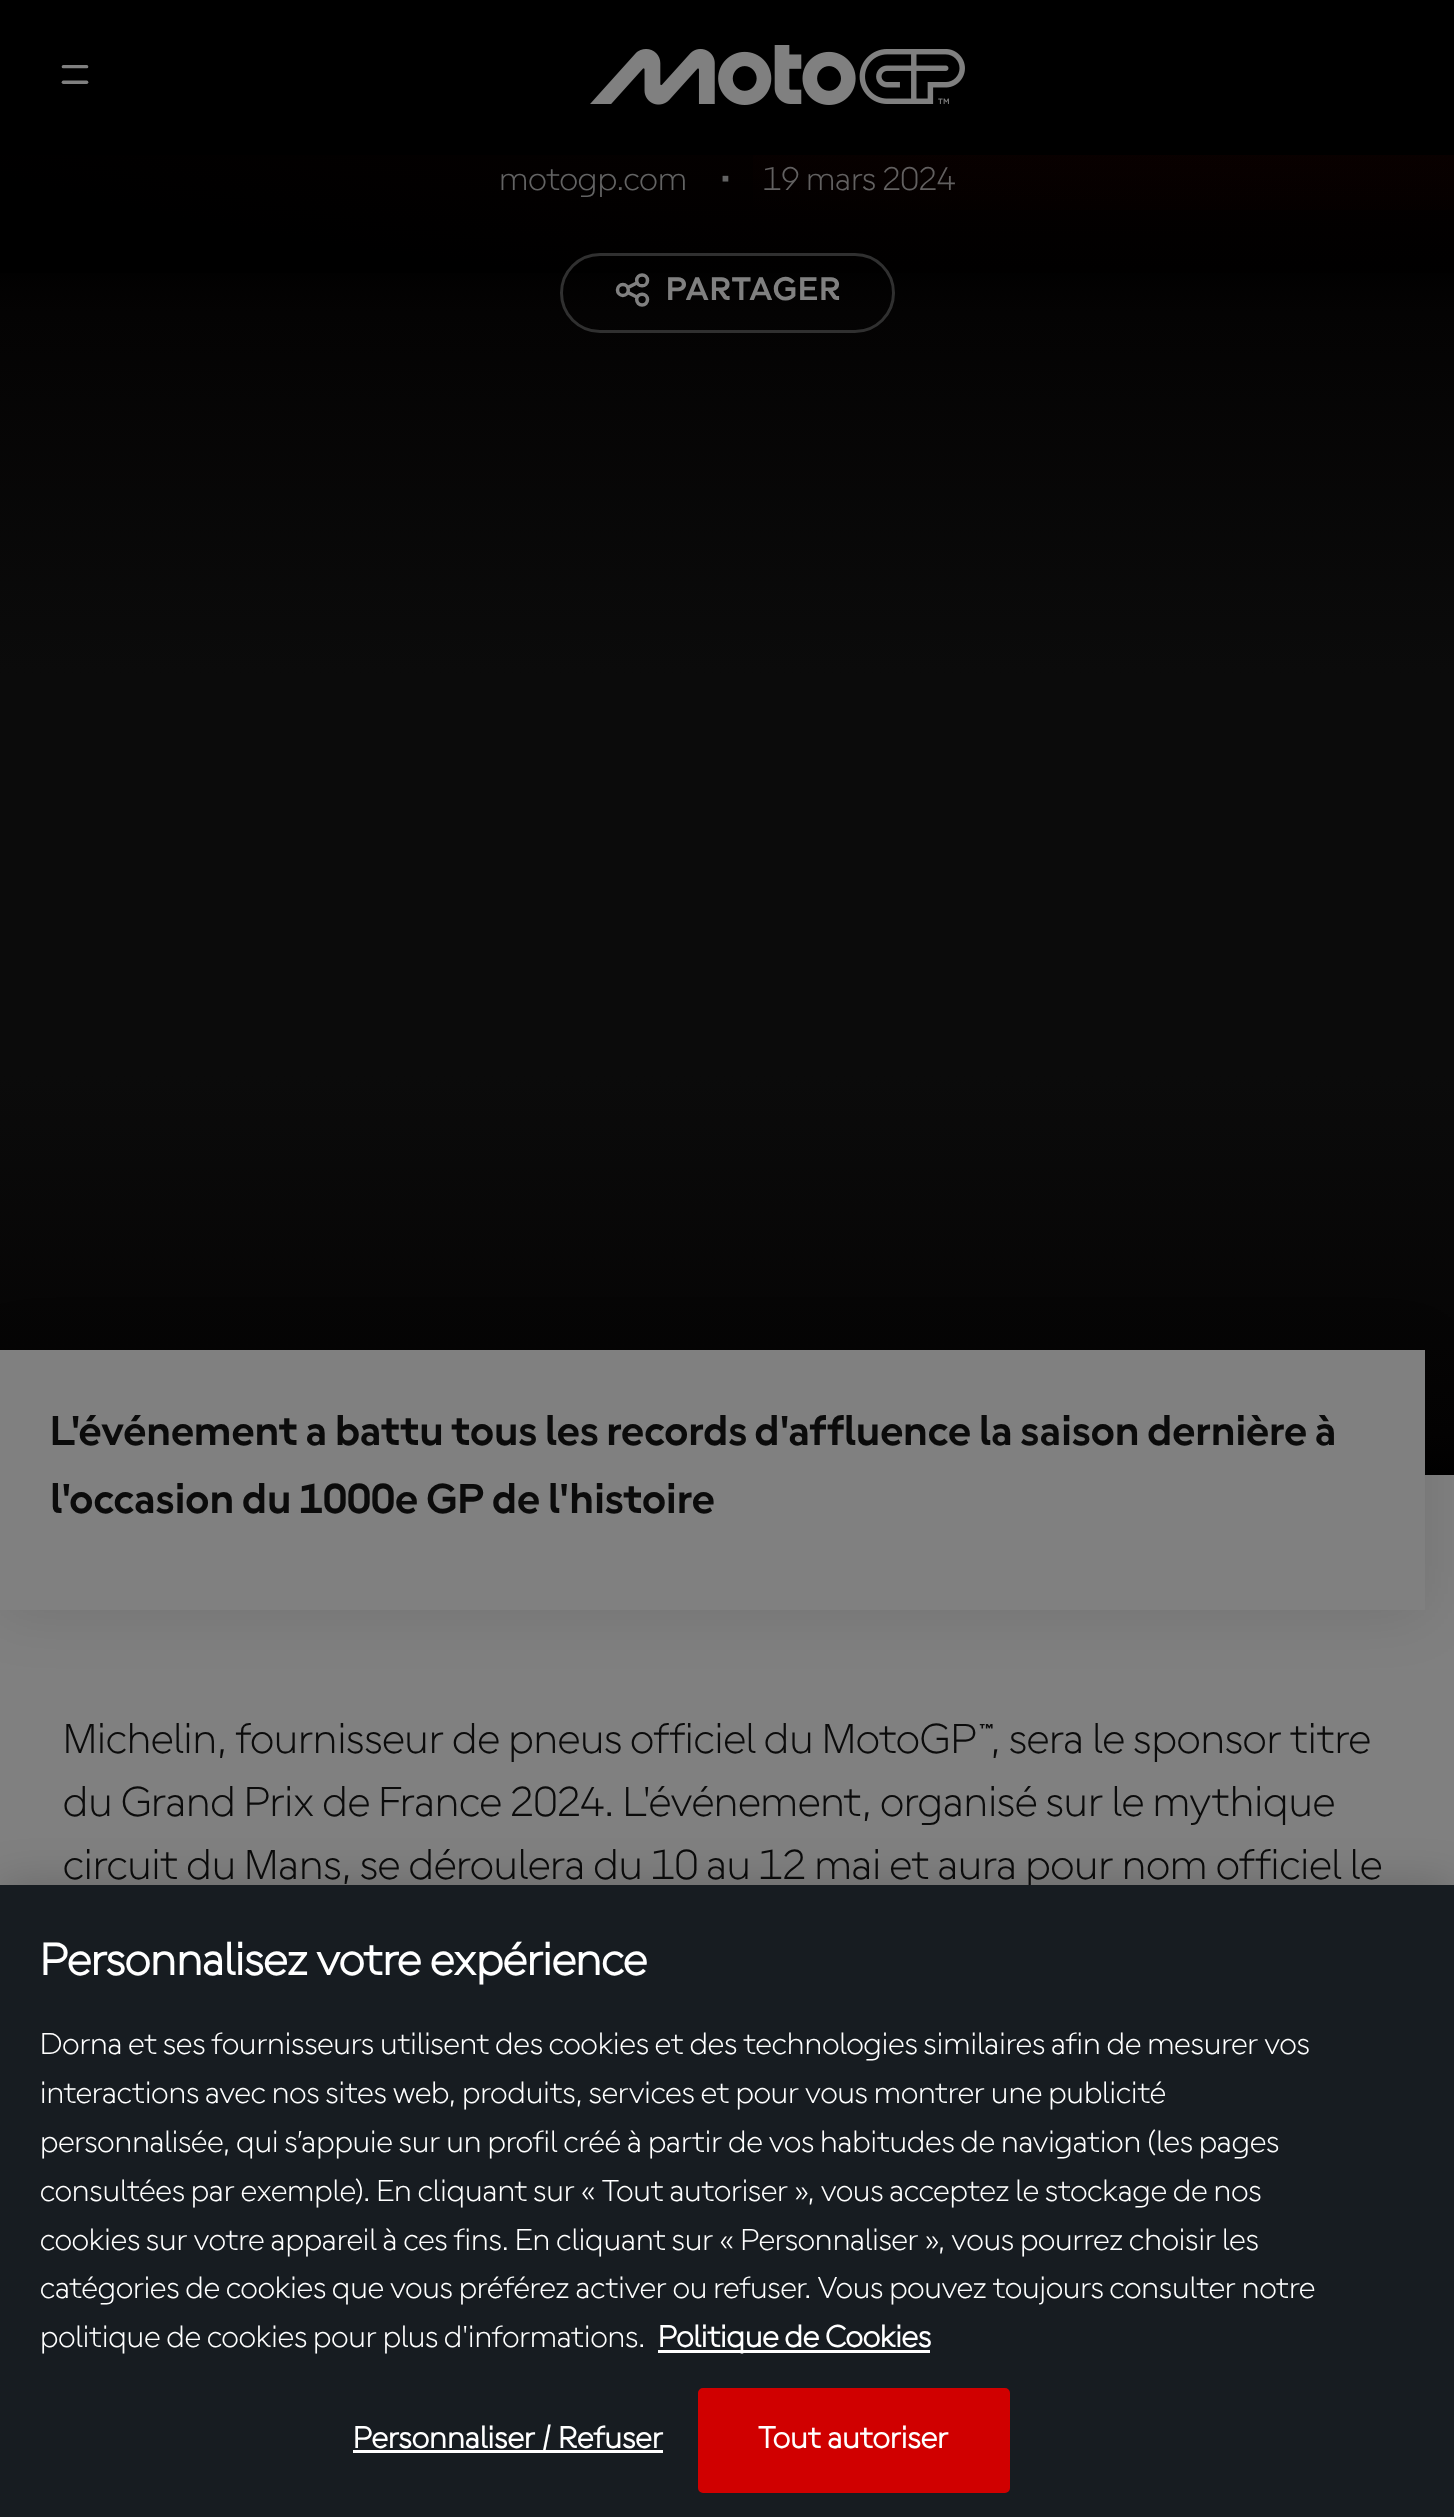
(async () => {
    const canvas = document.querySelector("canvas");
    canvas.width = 1454;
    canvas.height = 2517;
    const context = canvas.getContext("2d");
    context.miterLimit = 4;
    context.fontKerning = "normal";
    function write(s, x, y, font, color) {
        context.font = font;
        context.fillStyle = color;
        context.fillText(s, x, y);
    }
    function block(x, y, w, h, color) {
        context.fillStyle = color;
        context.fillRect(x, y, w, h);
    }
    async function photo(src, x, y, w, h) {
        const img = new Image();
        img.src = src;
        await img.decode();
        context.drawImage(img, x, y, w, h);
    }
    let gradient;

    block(0, 0, 1454, 2517, "rgb(128, 128, 128)");
    block(0, 0, 1454, 155, "rgb(0, 0, 0)");
    await photo("media/1.png", 61, 65, 28, 19);
    await photo("media/2.png", 590, 45, 375, 60);
    gradient = context.createRadialGradient(1110, -219.64, 0, 1110, -219.64, 1467);
    gradient.addColorStop(0, "rgb(11, 1, 0)");
    gradient.addColorStop(1, "rgb(0, 0, 0)");
    context.fillStyle = gradient;
    context.beginPath();
    context.rect(0, 155, 1454, 118);
    context.save();
    context.clip();
    context.scale(1, 354 / 1467);
    context.fillRect(0, 0, 1454, 10431);
    context.restore();
    write("motogp.com", 499, 190, "300 35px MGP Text", "rgb(99, 99, 99)");
    write("•", 720, 190, "300 35px MGP Text", "rgb(99, 99, 99)");
    write("19 mars 2024", 763, 190, "300 35px MGP Text", "rgb(99, 99, 99)");
    gradient = context.createLinearGradient(728, 172, 728, 673);
    gradient.addColorStop(0.16, "rgb(0, 0, 0)");
    gradient.addColorStop(0.28, "rgb(4, 3, 3)");
    gradient.addColorStop(1, "rgb(11, 11, 11)");
    context.fillStyle = gradient;
    context.fillRect(0, 273, 1454, 400);
    context.beginPath();
    context.roundRect(561.5, 254.5, 332, 77, 38.5);
    context.strokeStyle = "rgb(48, 48, 48)";
    context.lineWidth = 3;
    context.stroke();
    await photo("media/3.png", 615, 273, 35, 34);
    context.letterSpacing = "1px";
    write("PARTAGER", 666, 300, "bold 35px MGP Text", "rgb(128, 128, 128)");
    gradient = context.createRadialGradient(1455, -324.92, 0, 1455, -324.92, 1408);
    gradient.addColorStop(0, "rgba(74, 2, 1, 0.23)");
    gradient.addColorStop(1, "rgba(74, 2, 1, 0)");
    context.fillStyle = gradient;
    context.beginPath();
    context.rect(753, 155, 701, 55);
    context.save();
    context.clip();
    context.scale(1, 338 / 1408);
    context.fillRect(0, 0, 1454, 10486);
    context.restore();
    block(0, 673, 1454, 402, "rgb(11, 11, 11)");
    gradient = context.createLinearGradient(728, 1575, 728, 1075);
    gradient.addColorStop(0.16, "rgb(0, 0, 0)");
    gradient.addColorStop(0.28, "rgb(4, 3, 3)");
    gradient.addColorStop(1, "rgb(11, 11, 11)");
    context.fillStyle = gradient;
    context.fillRect(0, 1075, 1454, 400);
    context.fillStyle = "rgba(0, 0, 0, 0.1)";
    context.filter = "blur(29px)";
    context.beginPath();
    context.rect(0, 1353, 1425, 260);
    context.fill();
    context.filter = "none";
    block(0, 1350, 1425, 260, "rgb(128, 128, 128)");
    context.letterSpacing = "0px";
    write("L'événement a battu tous les records d'affluence la saison dernière à", 50, 1445, "bold 45px MGP Text", "rgb(11, 11, 11)");
    write("l'occasion du 1000e GP de l'histoire", 50, 1513, "bold 45px MGP Text", "rgb(11, 11, 11)");
    write("Michelin, fournisseur de pneus officiel du MotoGP™, sera le sponsor titre", 63, 1753, "300 45px MGP Text", "rgb(11, 11, 11)");
    write("du Grand Prix de France 2024. L'événement, organisé sur le mythique", 63, 1816, "300 45px MGP Text", "rgb(11, 11, 11)");
    write("circuit du Mans, se déroulera du 10 au 12 mai et aura pour nom officiel le", 63, 1879, "300 45px MGP Text", "rgb(11, 11, 11)");
    context.fillStyle = "rgba(0, 0, 0, 0.2)";
    context.filter = "blur(22.5px)";
    context.beginPath();
    context.rect(0, 1885, 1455, 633);
    context.fill();
    context.filter = "none";
    block(0, 1885, 1454, 632, "rgb(23, 28, 33)");
    write("Personnalisez votre expérience", 40, 1975, "bold 48px 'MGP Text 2'", "rgb(255, 255, 255)");
    write("Dorna et ses fournisseurs utilisent des cookies et des technologies similaires afin de mesurer vos", 40, 2054, "300 32.5px MGP Text", "rgb(255, 255, 255)");
    write("interactions avec nos sites web, produits, services et pour vous montrer une publicité", 40, 2103, "300 32.5px MGP Text", "rgb(255, 255, 255)");
    write("personnalisée, qui s’appuie sur un profil créé à partir de vos habitudes de navigation (les pages", 40, 2152, "300 32.5px MGP Text", "rgb(255, 255, 255)");
    write("consultées par exemple). En cliquant sur « Tout autoriser », vous acceptez le stockage de nos", 40, 2201, "300 32.5px MGP Text", "rgb(255, 255, 255)");
    write("cookies sur votre appareil à ces fins. En cliquant sur « Personnaliser », vous pourrez choisir les", 40, 2250, "300 32.5px MGP Text", "rgb(255, 255, 255)");
    write("catégories de cookies que vous préférez activer ou refuser. Vous pouvez toujours consulter notre", 40, 2298, "300 32.5px MGP Text", "rgb(255, 255, 255)");
    write("politique de cookies pour plus d'informations.", 40, 2347, "300 32.5px MGP Text", "rgb(255, 255, 255)");
    block(658, 2350, 272, 3, "rgb(255, 255, 255)");
    write("Politique de Cookies", 658, 2347, "bold 32.5px 'MGP Text 2'", "rgb(255, 255, 255)");
    block(353, 2450, 310, 3, "rgb(255, 255, 255)");
    context.letterSpacing = "0.3px";
    write("Personnaliser / Refuser", 353, 2448, "bold 32.5px 'MGP Text 2'", "rgb(255, 255, 255)");
    context.fillStyle = "rgb(208, 0, 0)";
    context.beginPath();
    context.roundRect(699.5, 2389.5, 309, 102, 3.5);
    context.fill();
    context.strokeStyle = "rgb(208, 0, 0)";
    context.stroke();
    write("Tout autoriser", 758, 2448, "bold 32.5px 'MGP Text 2'", "rgb(255, 255, 255)");
})();
